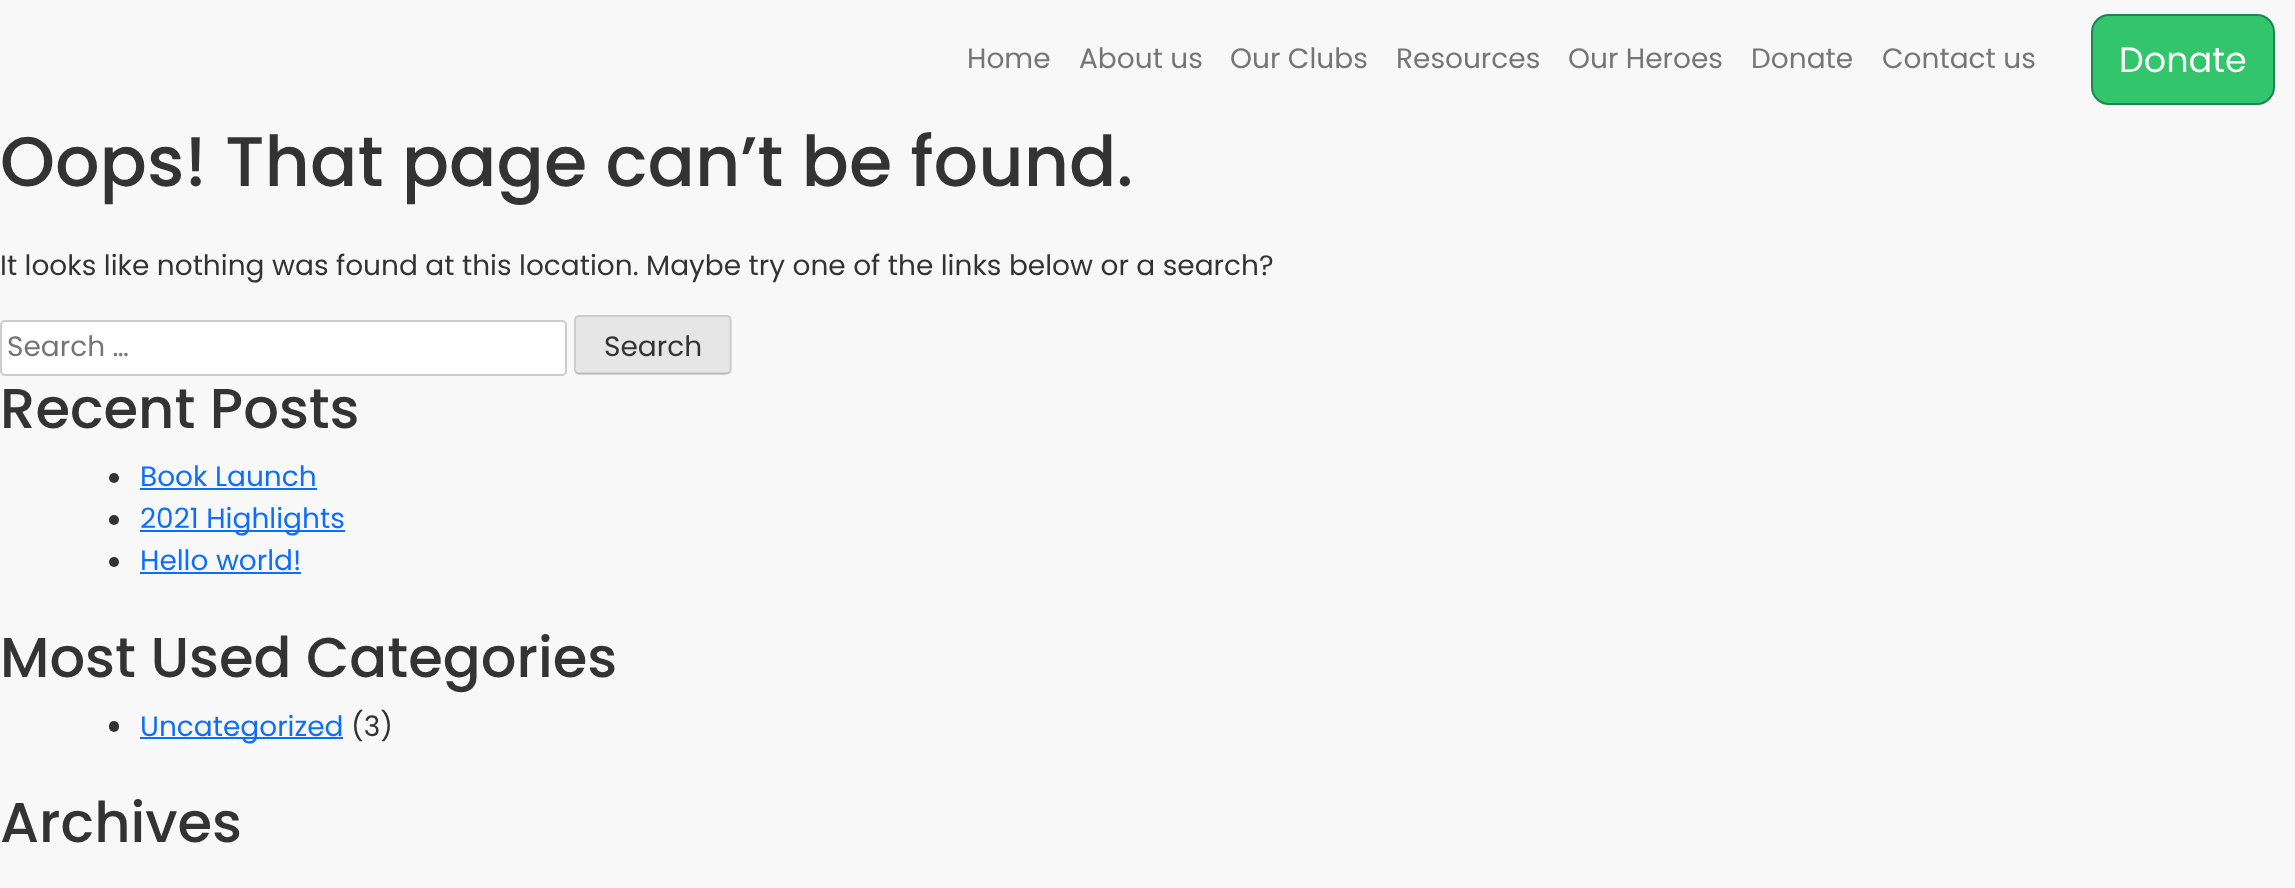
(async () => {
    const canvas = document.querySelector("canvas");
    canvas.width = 2295;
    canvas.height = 888;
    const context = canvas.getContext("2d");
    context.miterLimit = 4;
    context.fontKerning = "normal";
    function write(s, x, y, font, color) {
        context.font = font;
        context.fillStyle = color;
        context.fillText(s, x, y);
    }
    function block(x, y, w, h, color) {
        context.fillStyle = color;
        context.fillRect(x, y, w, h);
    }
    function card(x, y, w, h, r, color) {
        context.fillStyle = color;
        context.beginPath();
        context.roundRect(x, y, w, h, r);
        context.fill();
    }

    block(0, 0, 2295, 888, "rgb(248, 248, 248)");
    write("Home", 967, 68, "28px Poppins", "rgb(117, 117, 117)");
    write("About us", 1079, 68, "28px Poppins", "rgb(117, 117, 117)");
    write("Our Clubs", 1230, 68, "28px Poppins", "rgb(117, 117, 117)");
    write("Resources", 1396, 68, "28px Poppins", "rgb(117, 117, 117)");
    write("Our Heroes", 1568, 68, "28px Poppins", "rgb(117, 117, 117)");
    write("Donate", 1751, 68, "28px Poppins", "rgb(117, 117, 117)");
    write("Contact us", 1882, 68, "28px Poppins", "rgb(117, 117, 117)");
    context.fillStyle = "rgb(50, 197, 108)";
    context.beginPath();
    context.roundRect(2092, 15, 182, 89, 17);
    context.fill();
    context.strokeStyle = "rgb(25, 135, 84)";
    context.lineWidth = 2;
    context.stroke();
    write("Donate", 2119, 72, "35px Poppins", "rgb(255, 255, 255)");
    write("Oops! That page can’t be found.", 0, 186, "500 70px Poppins", "rgb(51, 51, 51)");
    write("It looks like nothing was found at this location. Maybe try one of the links below or a search?", 0, 275, "28px Poppins", "rgb(51, 51, 51)");
    context.fillStyle = "rgb(255, 255, 255)";
    context.beginPath();
    context.roundRect(1, 321, 565, 54, 4);
    context.fill();
    context.strokeStyle = "rgb(204, 204, 204)";
    context.stroke();
    write("Search …", 7, 356, "28px Poppins", "rgb(117, 117, 117)");
    card(574, 315, 158, 60, 5, "rgb(230, 230, 230)");
    context.beginPath();
    context.moveTo(729.5, 372.5);
    context.bezierCurveTo(728.5, 373, 727.5, 373.5, 726, 373.5);
    context.lineTo(579, 373.5);
    context.bezierCurveTo(578, 373.5, 577, 373, 576, 372.5);
    context.strokeStyle = "rgb(187, 187, 187)";
    context.lineWidth = 1.8;
    context.stroke();
    context.beginPath();
    context.moveTo(576, 372.5);
    context.bezierCurveTo(575.5, 371.5, 575, 370.5, 575, 369);
    context.lineTo(575, 320);
    context.bezierCurveTo(575, 319, 575.5, 318, 576, 317);
    context.bezierCurveTo(577, 316.5, 578, 316, 579, 316);
    context.lineTo(726, 316);
    context.bezierCurveTo(727.5, 316, 728.5, 316.5, 729.5, 317);
    context.bezierCurveTo(730, 318, 730.5, 319, 730.5, 320);
    context.lineTo(730.5, 369);
    context.bezierCurveTo(730.5, 370.5, 730, 371.5, 729.5, 372.5);
    context.strokeStyle = "rgb(204, 204, 204)";
    context.stroke();
    write("Search", 604, 356, "28px Poppins", "rgb(51, 51, 51)");
    write("Recent Posts", 0, 428, "500 56px Poppins", "rgb(51, 51, 51)");
    context.beginPath();
    context.arc(114, 478, 5, 0, Math.PI * 2);
    context.fill();
    write("Book Launch", 140, 486, "28px Poppins", "rgb(13, 110, 253)");
    block(140, 488, 177, 2, "rgb(13, 110, 253)");
    context.fillStyle = "rgb(51, 51, 51)";
    context.beginPath();
    context.arc(114, 520, 5, 0, Math.PI * 2);
    context.fill();
    block(140, 530, 205, 2, "rgb(13, 110, 253)");
    write("2021 Highlights", 140, 528, "28px Poppins", "rgb(13, 110, 253)");
    context.fillStyle = "rgb(51, 51, 51)";
    context.beginPath();
    context.arc(114, 562, 5, 0, Math.PI * 2);
    context.fill();
    write("Hello world!", 140, 570, "28px Poppins", "rgb(13, 110, 253)");
    block(140, 572, 161, 2, "rgb(13, 110, 253)");
    write("Most Used Categories", 0, 677, "500 56px Poppins", "rgb(51, 51, 51)");
    card(109, 721, 10, 11, 5, "rgb(51, 51, 51)");
    block(140, 737, 203, 2, "rgb(13, 110, 253)");
    write("Uncategorized", 140, 736, "28px Poppins", "rgb(13, 110, 253)");
    write("(3)", 351, 736, "28px Poppins", "rgb(51, 51, 51)");
    write("Archives", 0, 842, "500 56px Poppins", "rgb(51, 51, 51)");
})();
